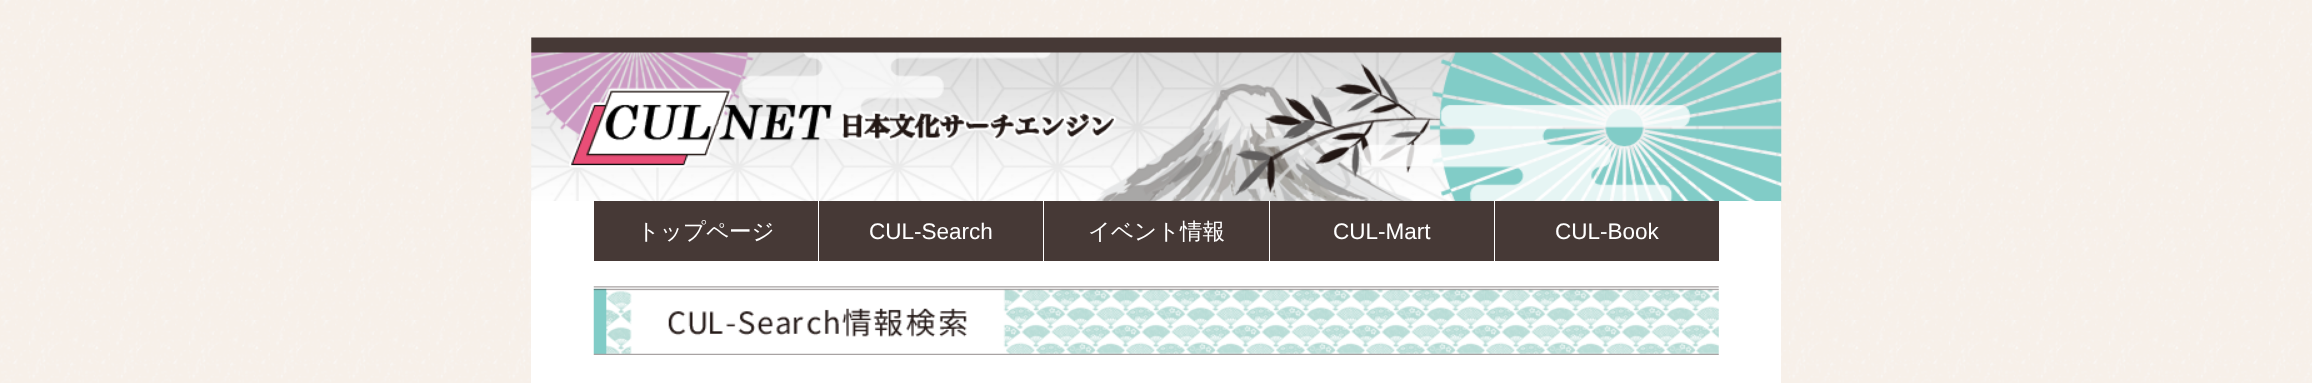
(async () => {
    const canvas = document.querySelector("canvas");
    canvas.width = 2312;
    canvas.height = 383;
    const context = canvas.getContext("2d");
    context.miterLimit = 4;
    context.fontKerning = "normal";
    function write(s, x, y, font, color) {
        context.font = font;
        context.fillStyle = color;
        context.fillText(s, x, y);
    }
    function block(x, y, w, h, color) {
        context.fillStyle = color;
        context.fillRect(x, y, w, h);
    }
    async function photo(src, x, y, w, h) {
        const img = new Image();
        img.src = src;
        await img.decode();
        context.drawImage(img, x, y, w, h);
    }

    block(0, 0, 2312, 383, "rgb(255, 255, 255)");
    await photo("media/1.png", 0, 0, 2312, 383);
    await photo("media/2.png", 531, 37, 1251, 165);
    await photo("media/3.png", 569, 87, 548, 81);
    block(531, 201, 1250, 182, "rgb(255, 255, 255)");
    block(594, 201, 224, 60, "rgb(70, 57, 54)");
    write("トップページ", 637, 239, "500 22.5px WenQuanYi Zen Hei", "rgb(255, 255, 255)");
    block(819, 201, 224, 60, "rgb(70, 57, 54)");
    write("CUL-Search", 869, 239, "22.5px Liberation Sans", "rgb(255, 255, 255)");
    block(1044, 201, 225, 60, "rgb(70, 57, 54)");
    write("イベント情報", 1088, 239, "500 22.5px WenQuanYi Zen Hei", "rgb(255, 255, 255)");
    block(1270, 201, 224, 60, "rgb(70, 57, 54)");
    write("CUL-Mart", 1333, 239, "22.5px Liberation Sans", "rgb(255, 255, 255)");
    block(1495, 201, 224, 60, "rgb(70, 57, 54)");
    write("CUL-Book", 1555, 239, "22.5px Liberation Sans", "rgb(255, 255, 255)");
    await photo("media/4.png", 593, 286, 1126, 69);
})();
